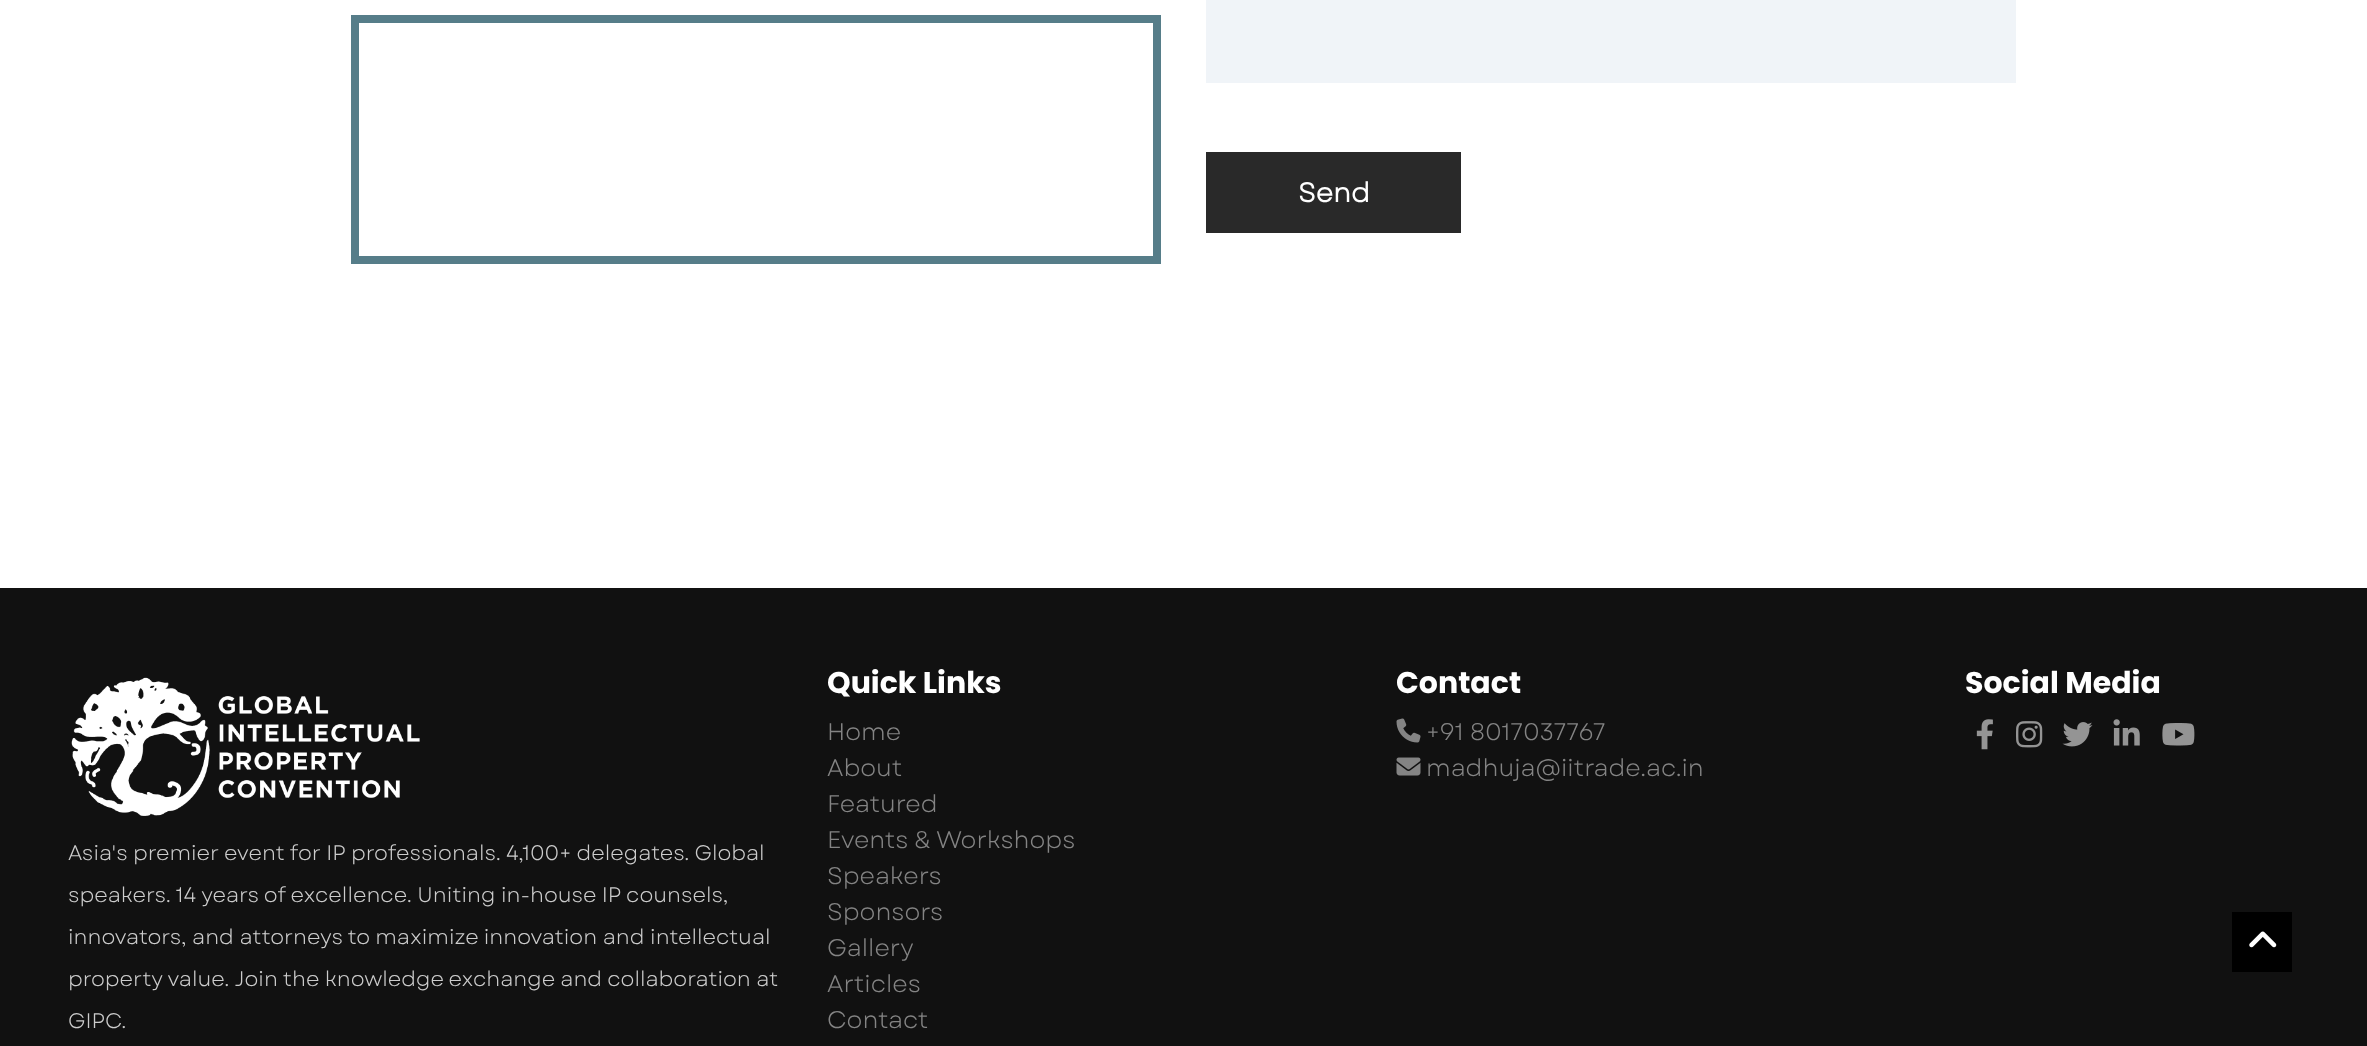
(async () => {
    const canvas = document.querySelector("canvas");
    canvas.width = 2367;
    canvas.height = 1046;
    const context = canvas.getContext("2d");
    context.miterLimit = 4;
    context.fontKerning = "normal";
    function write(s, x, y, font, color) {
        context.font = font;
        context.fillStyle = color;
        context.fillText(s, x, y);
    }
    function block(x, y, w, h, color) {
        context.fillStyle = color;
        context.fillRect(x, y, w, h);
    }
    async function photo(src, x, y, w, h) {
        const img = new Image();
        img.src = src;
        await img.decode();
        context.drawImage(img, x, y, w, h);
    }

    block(0, 0, 2367, 1046, "rgb(255, 255, 255)");
    context.strokeStyle = "rgb(86, 125, 137)";
    context.lineWidth = 8;
    context.strokeRect(355, 19, 802, 241);
    block(1206, 0, 810, 83, "rgb(240, 244, 248)");
    block(1206, 152, 255, 81, "rgb(41, 41, 41)");
    write("Send", 1298, 202, "bold 27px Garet", "rgb(255, 255, 255)");
    block(0, 588, 2367, 458, "rgb(17, 17, 17)");
    write("Quick Links", 827, 693, "bold 30px Poppins", "rgb(255, 255, 255)");
    write("Home", 827, 740, "24px Garet", "rgb(132, 132, 132)");
    write("About", 827, 776, "24px Garet", "rgb(132, 132, 132)");
    write("Featured", 827, 812, "24px Garet", "rgb(132, 132, 132)");
    write("Events & Workshops", 827, 848, "24px Garet", "rgb(132, 132, 132)");
    write("Speakers", 827, 884, "24px Garet", "rgb(132, 132, 132)");
    write("Sponsors", 827, 920, "24px Garet", "rgb(132, 132, 132)");
    write("Gallery", 827, 956, "24px Garet", "rgb(132, 132, 132)");
    write("Articles", 827, 992, "24px Garet", "rgb(132, 132, 132)");
    write("Contact", 827, 1028, "24px Garet", "rgb(132, 132, 132)");
    write("Contact", 1396, 693, "bold 30px Poppins", "rgb(255, 255, 255)");
    await photo("media/1.png", 1396, 718, 25, 25);
    write("+91 8017037767", 1426, 740, "24px Garet", "rgb(132, 132, 132)");
    await photo("media/2.png", 1396, 757, 25, 19);
    write("madhuja@iitrade.ac.in", 1426, 776, "24px Garet", "rgb(132, 132, 132)");
    write("Social Media", 1965, 693, "bold 30px Poppins", "rgb(255, 255, 255)");
    await photo("media/3.png", 1976, 719, 17, 31);
    await photo("media/4.png", 2016, 721, 27, 27);
    await photo("media/5.png", 2062, 722, 31, 25);
    await photo("media/6.png", 2113, 719, 27, 27);
    await photo("media/7.png", 2162, 723, 33, 23);
    await photo("media/8.png", 71, 677, 349, 139);
    write("Asia's premier event for IP professionals. 4,100+ delegates. Global", 68, 860, "21px Garet", "rgb(204, 204, 204)");
    write("speakers. 14 years of excellence. Uniting in-house IP counsels,", 68, 902, "21px Garet", "rgb(204, 204, 204)");
    write("innovators, and attorneys to maximize innovation and intellectual", 68, 944, "21px Garet", "rgb(204, 204, 204)");
    write("property value. Join the knowledge exchange and collaboration at", 68, 986, "21px Garet", "rgb(204, 204, 204)");
    write("GIPC.", 68, 1028, "21px Garet", "rgb(204, 204, 204)");
    block(2232, 912, 60, 60, "rgb(0, 0, 0)");
    await photo("media/9.png", 2249, 931, 28, 17);
})();
